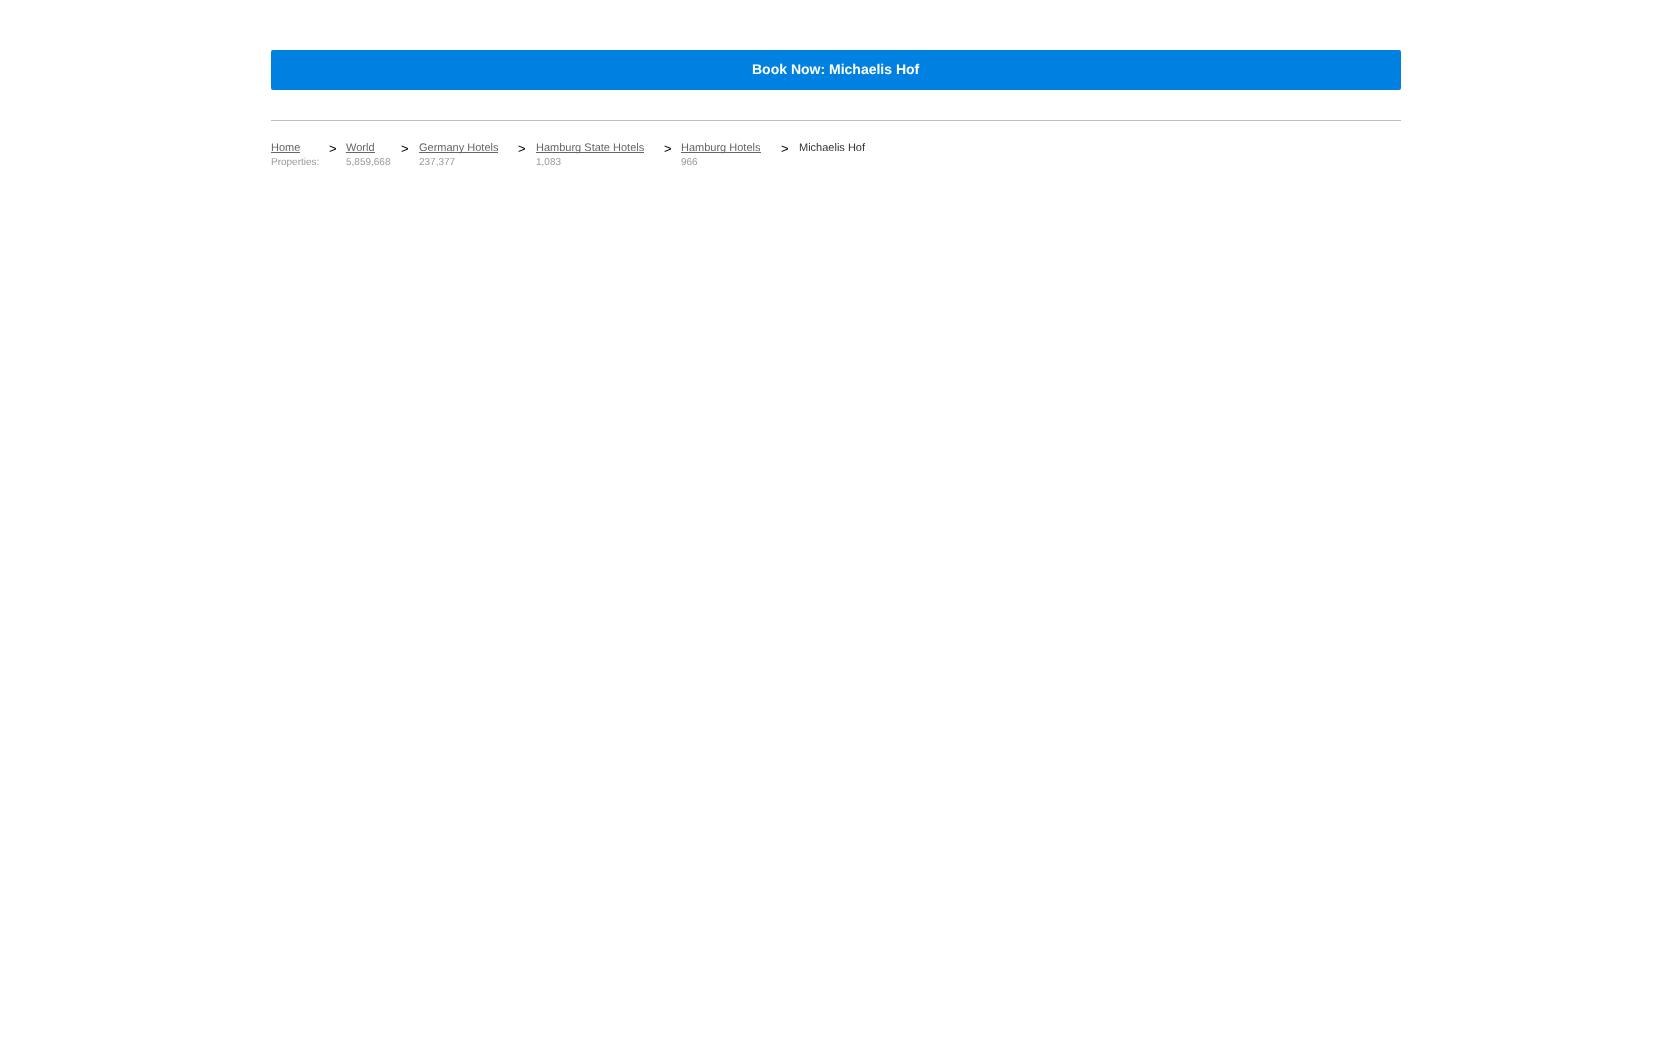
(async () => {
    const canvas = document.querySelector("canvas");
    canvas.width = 1671;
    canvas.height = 1046;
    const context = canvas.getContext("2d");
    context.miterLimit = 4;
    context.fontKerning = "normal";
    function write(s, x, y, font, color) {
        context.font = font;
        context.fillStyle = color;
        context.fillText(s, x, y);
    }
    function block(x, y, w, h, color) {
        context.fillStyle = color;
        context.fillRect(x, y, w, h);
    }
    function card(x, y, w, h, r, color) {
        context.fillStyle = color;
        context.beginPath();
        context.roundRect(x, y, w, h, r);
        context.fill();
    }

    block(0, 0, 1671, 1046, "rgb(255, 255, 255)");
    card(271, 50, 1130, 40, 2, "rgb(0, 129, 226)");
    write("Book Now: Michaelis Hof", 752, 74, "bold 14px Liberation Sans", "rgb(255, 255, 255)");
    block(271, 120, 1130, 1, "rgb(188, 188, 188)");
    write("Home", 271, 151, "11px Liberation Sans", "rgb(102, 102, 102)");
    block(271, 152, 29, 1, "rgb(102, 102, 102)");
    write("Properties:", 271, 165, "10px Liberation Sans", "rgb(154, 154, 154)");
    write(">", 329, 153, "13px Liberation Sans", "rgb(0, 0, 0)");
    write("World", 346, 151, "11px Liberation Sans", "rgb(102, 102, 102)");
    block(346, 152, 29, 1, "rgb(102, 102, 102)");
    write("5,859,668", 346, 165, "10px Liberation Sans", "rgb(154, 154, 154)");
    write(">", 401, 153, "13px Liberation Sans", "rgb(0, 0, 0)");
    block(419, 152, 79, 1, "rgb(102, 102, 102)");
    write("Germany Hotels", 419, 151, "11px Liberation Sans", "rgb(102, 102, 102)");
    write("237,377", 419, 165, "10px Liberation Sans", "rgb(154, 154, 154)");
    write(">", 518, 153, "13px Liberation Sans", "rgb(0, 0, 0)");
    block(536, 152, 108, 1, "rgb(102, 102, 102)");
    write("Hamburg State Hotels", 536, 151, "11px Liberation Sans", "rgb(102, 102, 102)");
    write("1,083", 536, 165, "10px Liberation Sans", "rgb(154, 154, 154)");
    write(">", 664, 153, "13px Liberation Sans", "rgb(0, 0, 0)");
    block(681, 152, 80, 1, "rgb(102, 102, 102)");
    write("Hamburg Hotels", 681, 151, "11px Liberation Sans", "rgb(102, 102, 102)");
    write("966", 681, 165, "10px Liberation Sans", "rgb(154, 154, 154)");
    write(">", 781, 153, "13px Liberation Sans", "rgb(0, 0, 0)");
    write("Michaelis Hof", 799, 151, "11px Liberation Sans", "rgb(51, 51, 51)");
})();
